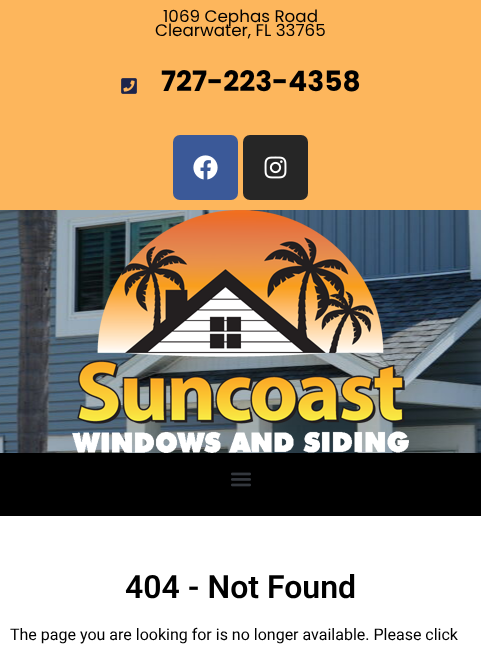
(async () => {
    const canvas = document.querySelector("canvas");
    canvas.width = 481;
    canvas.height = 655;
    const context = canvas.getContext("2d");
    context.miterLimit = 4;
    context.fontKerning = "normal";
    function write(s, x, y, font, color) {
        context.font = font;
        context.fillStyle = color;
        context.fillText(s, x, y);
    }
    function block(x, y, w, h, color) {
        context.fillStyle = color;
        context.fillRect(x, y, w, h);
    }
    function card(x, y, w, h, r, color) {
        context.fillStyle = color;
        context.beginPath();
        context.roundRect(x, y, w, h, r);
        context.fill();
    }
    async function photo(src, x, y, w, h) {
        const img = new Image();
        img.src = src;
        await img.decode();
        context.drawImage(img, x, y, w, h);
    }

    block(0, 0, 481, 655, "rgb(255, 255, 255)");
    block(0, 0, 481, 210, "rgb(253, 182, 92)");
    write("1069 Cephas Road", 163, 22, "16.75px Poppins", "rgb(0, 0, 0)");
    write("Clearwater, FL 33765", 155, 36, "16.75px Poppins", "rgb(0, 0, 0)");
    await photo("media/1.png", 121, 78, 16, 16);
    write("727-223-4358", 161, 91, "bold 28px Poppins", "rgb(0, 0, 0)");
    card(173, 135, 65, 65, 7, "rgb(59, 89, 152)");
    await photo("media/2.png", 193, 155, 25, 25);
    card(243, 135, 65, 65, 7, "rgb(38, 38, 38)");
    await photo("media/3.png", 264, 156, 23, 23);
    await photo("media/4.png", 0, 210, 481, 243);
    await photo("media/5.png", 72, 210, 337, 243);
    block(0, 453, 481, 63, "rgb(0, 0, 0)");
    await photo("media/6.png", 231, 472, 20, 15);
    write("404 - Not Found", 125, 598, "600 32px Roboto", "rgb(0, 0, 0)");
    write("The page you are looking for is no longer available. Please click", 10, 640, "16px Roboto", "rgb(0, 0, 0)");
})();
